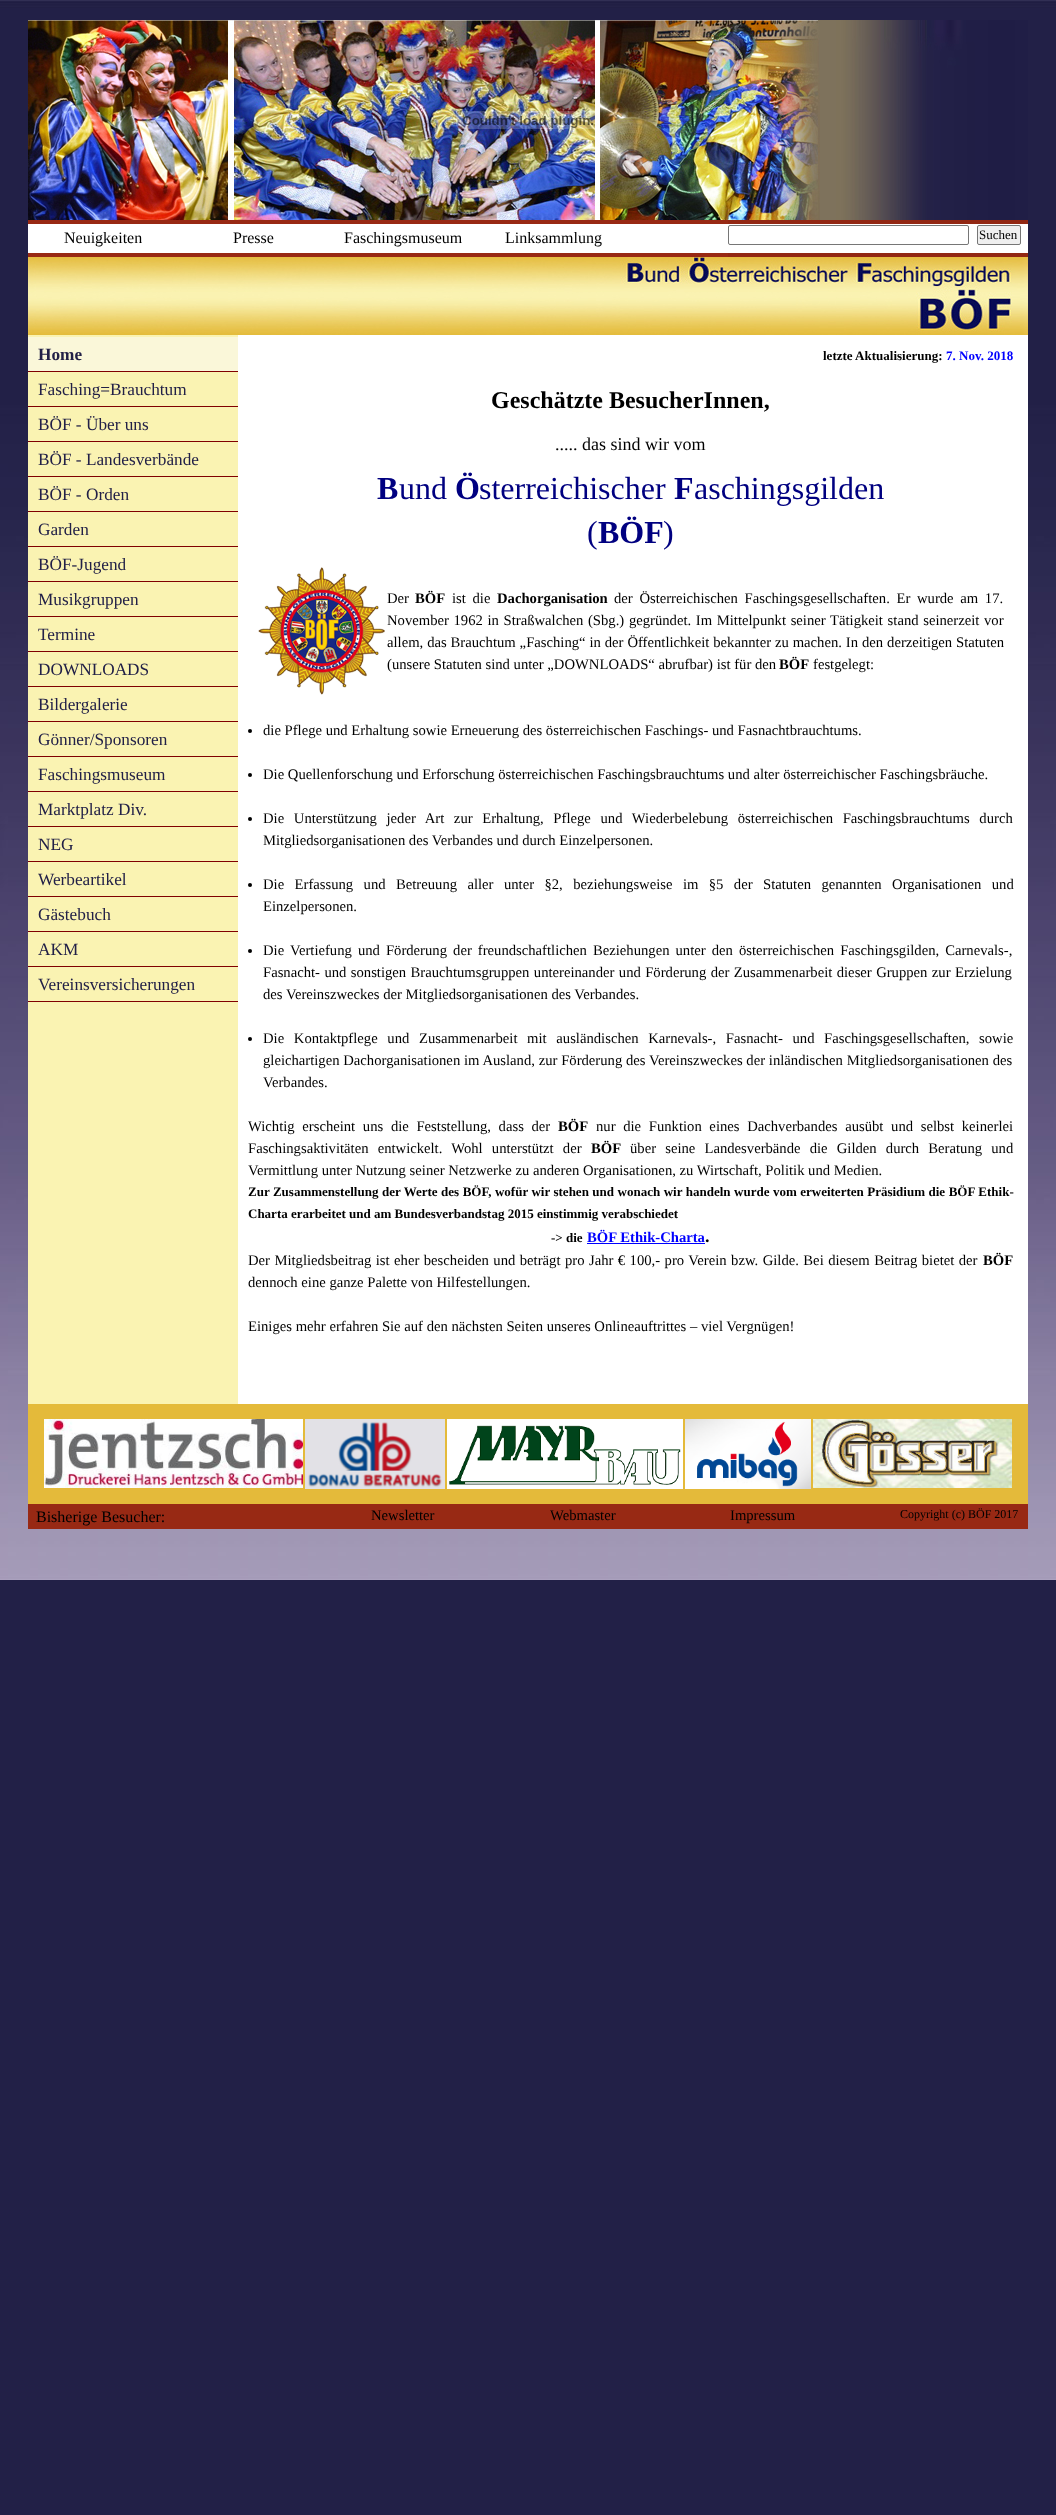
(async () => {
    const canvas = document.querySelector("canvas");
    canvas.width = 1056;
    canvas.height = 2515;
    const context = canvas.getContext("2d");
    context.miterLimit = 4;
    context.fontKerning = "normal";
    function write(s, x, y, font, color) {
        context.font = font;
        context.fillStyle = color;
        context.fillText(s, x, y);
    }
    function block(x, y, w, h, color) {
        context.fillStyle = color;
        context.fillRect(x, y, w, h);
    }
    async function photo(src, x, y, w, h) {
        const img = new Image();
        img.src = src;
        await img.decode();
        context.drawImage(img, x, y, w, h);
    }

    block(0, 0, 1056, 2515, "rgb(34, 32, 71)");
    await photo("media/1.png", 0, 0, 1056, 1580);
    await photo("media/2.png", 28, 20, 1000, 200);
    await photo("media/3.png", 456, 111, 139, 18);
    block(28, 224, 1000, 29, "rgb(255, 255, 255)");
    block(28, 220, 700, 4, "rgb(152, 41, 20)");
    block(28, 253, 700, 4, "rgb(152, 41, 20)");
    write("Neuigkeiten", 64, 243, "16px Liberation Serif", "rgb(0, 0, 0)");
    write("Presse", 233, 243, "16px Liberation Serif", "rgb(0, 0, 0)");
    write("Faschingsmuseum", 344, 243, "16px Liberation Serif", "rgb(0, 0, 0)");
    write("Linksammlung", 505, 243, "16px Liberation Serif", "rgb(0, 0, 0)");
    block(728, 220, 300, 4, "rgb(146, 39, 19)");
    block(728, 253, 300, 4, "rgb(146, 39, 19)");
    context.beginPath();
    context.roundRect(728.5, 225.5, 240, 19, 1.5);
    context.strokeStyle = "rgb(118, 118, 118)";
    context.stroke();
    context.fillStyle = "rgb(239, 239, 239)";
    context.beginPath();
    context.roundRect(977.5, 225.5, 43, 19, 1.5);
    context.fill();
    context.stroke();
    write("Suchen", 979, 239, "13px Liberation Serif", "rgb(0, 0, 0)");
    await photo("media/4.png", 28, 257, 1000, 78);
    block(28, 335, 210, 1069, "rgb(250, 243, 178)");
    block(28, 337, 210, 34, "rgb(250, 247, 217)");
    block(28, 371, 210, 1, "rgb(128, 0, 0)");
    write("Home", 38, 360, "bold 17.25px Liberation Serif", "rgb(34, 32, 71)");
    block(28, 406, 210, 1, "rgb(128, 0, 0)");
    write("Fasching=Brauchtum", 38, 395, "17.25px Liberation Serif", "rgb(34, 32, 71)");
    block(28, 441, 210, 1, "rgb(128, 0, 0)");
    write("BÖF - Über uns", 38, 430, "17.25px Liberation Serif", "rgb(34, 32, 71)");
    block(28, 476, 210, 1, "rgb(128, 0, 0)");
    write("BÖF - Landesverbände", 38, 465, "17.25px Liberation Serif", "rgb(34, 32, 71)");
    block(28, 511, 210, 1, "rgb(128, 0, 0)");
    write("BÖF - Orden", 38, 500, "17.25px Liberation Serif", "rgb(34, 32, 71)");
    block(28, 546, 210, 1, "rgb(128, 0, 0)");
    write("Garden", 38, 535, "17.25px Liberation Serif", "rgb(34, 32, 71)");
    block(28, 581, 210, 1, "rgb(128, 0, 0)");
    write("BÖF-Jugend", 38, 570, "17.25px Liberation Serif", "rgb(34, 32, 71)");
    block(28, 616, 210, 1, "rgb(128, 0, 0)");
    write("Musikgruppen", 38, 605, "17.25px Liberation Serif", "rgb(34, 32, 71)");
    block(28, 651, 210, 1, "rgb(128, 0, 0)");
    write("Termine", 38, 640, "17.25px Liberation Serif", "rgb(34, 32, 71)");
    block(28, 686, 210, 1, "rgb(128, 0, 0)");
    write("DOWNLOADS", 38, 675, "17.25px Liberation Serif", "rgb(34, 32, 71)");
    block(28, 721, 210, 1, "rgb(128, 0, 0)");
    write("Bildergalerie", 38, 710, "17.25px Liberation Serif", "rgb(34, 32, 71)");
    block(28, 756, 210, 1, "rgb(128, 0, 0)");
    write("Gönner/Sponsoren", 38, 745, "17.25px Liberation Serif", "rgb(34, 32, 71)");
    block(28, 791, 210, 1, "rgb(128, 0, 0)");
    write("Faschingsmuseum", 38, 780, "17.25px Liberation Serif", "rgb(34, 32, 71)");
    block(28, 826, 210, 1, "rgb(128, 0, 0)");
    write("Marktplatz Div.", 38, 815, "17.25px Liberation Serif", "rgb(34, 32, 71)");
    block(28, 861, 210, 1, "rgb(128, 0, 0)");
    write("NEG", 38, 850, "17.25px Liberation Serif", "rgb(34, 32, 71)");
    block(28, 896, 210, 1, "rgb(128, 0, 0)");
    write("Werbeartikel", 38, 885, "17.25px Liberation Serif", "rgb(34, 32, 71)");
    block(28, 931, 210, 1, "rgb(128, 0, 0)");
    write("Gästebuch", 38, 920, "17.25px Liberation Serif", "rgb(34, 32, 71)");
    block(28, 966, 210, 1, "rgb(128, 0, 0)");
    write("AKM", 38, 955, "17.25px Liberation Serif", "rgb(34, 32, 71)");
    block(28, 1001, 210, 1, "rgb(128, 0, 0)");
    write("Vereinsversicherungen", 38, 990, "17.25px Liberation Serif", "rgb(34, 32, 71)");
    block(238, 335, 790, 1069, "rgb(255, 255, 255)");
    write("letzte Aktualisierung:", 823, 360, "bold 13px Liberation Serif", "rgb(0, 0, 0)");
    write("7. Nov. 2018", 946, 360, "bold 13px Liberation Serif", "rgb(0, 0, 255)");
    write("Geschätzte BesucherInnen,", 491, 408, "bold 24px Liberation Serif", "rgb(0, 0, 0)");
    write("..... das sind wir vom", 555, 450, "18px Liberation Serif", "rgb(0, 0, 0)");
    write("B", 377, 499, "bold 32px Liberation Serif", "rgb(0, 0, 128)");
    write("und", 399, 499, "32px Liberation Serif", "rgb(0, 0, 128)");
    write("Ö", 455, 499, "bold 32px Liberation Serif", "rgb(0, 0, 128)");
    write("sterreichischer", 479, 499, "32px Liberation Serif", "rgb(0, 0, 128)");
    write("F", 674, 499, "bold 32px Liberation Serif", "rgb(0, 0, 128)");
    write("aschingsgilden", 694, 499, "32px Liberation Serif", "rgb(0, 0, 128)");
    write("(", 587, 543, "32px Liberation Serif", "rgb(0, 0, 128)");
    write("BÖF", 598, 543, "bold 32px Liberation Serif", "rgb(0, 0, 128)");
    write(")", 663, 543, "32px Liberation Serif", "rgb(0, 0, 128)");
    await photo("media/5.png", 258, 567, 127, 128);
    write("Der", 387, 603, "14.67px Liberation Serif", "rgb(0, 0, 0)");
    write("BÖF", 415, 603, "bold 14.67px Liberation Serif", "rgb(0, 0, 0)");
    context.wordSpacing = "3px";
    write("ist die", 452, 603, "14.67px Liberation Serif", "rgb(0, 0, 0)");
    context.wordSpacing = "0px";
    write("Dachorganisation", 497, 603, "bold 14.67px Liberation Serif", "rgb(0, 0, 0)");
    context.wordSpacing = "3px";
    write("der Österreichischen Faschingsgesellschaften. Er wurde am 17.", 614, 603, "14.67px Liberation Serif", "rgb(0, 0, 0)");
    context.wordSpacing = "1px";
    write("November 1962 in Straßwalchen (Sbg.) gegründet. Im Mittelpunkt seiner Tätigkeit stand seinerzeit vor", 387, 625, "14.67px Liberation Serif", "rgb(0, 0, 0)");
    context.wordSpacing = "0.25px";
    write("allem, das Brauchtum „Fasching“ in der Öffentlichkeit bekannter zu machen. In den derzeitigen Statuten", 387, 647, "14.67px Liberation Serif", "rgb(0, 0, 0)");
    context.wordSpacing = "0px";
    write("(unsere Statuten sind unter „DOWNLOADS“ abrufbar) ist für den", 387, 669, "14.67px Liberation Serif", "rgb(0, 0, 0)");
    write("BÖF", 779, 669, "bold 14.67px Liberation Serif", "rgb(0, 0, 0)");
    write("festgelegt:", 813, 669, "14.67px Liberation Serif", "rgb(0, 0, 0)");
    context.beginPath();
    context.arc(250, 731, 2, 0, Math.PI * 2);
    context.fill();
    write("die Pflege und Erhaltung sowie Erneuerung des österreichischen Faschings- und Fasnachtbrauchtums.", 263, 735, "14.67px Liberation Serif", "rgb(0, 0, 0)");
    context.beginPath();
    context.arc(250, 775, 2, 0, Math.PI * 2);
    context.fill();
    write("Die Quellenforschung und Erforschung österreichischen Faschingsbrauchtums und alter österreichischer Faschingsbräuche.", 263, 779, "14.67px Liberation Serif", "rgb(0, 0, 0)");
    context.beginPath();
    context.arc(250, 819, 2, 0, Math.PI * 2);
    context.fill();
    context.wordSpacing = "6px";
    write("Die Unterstützung jeder Art zur Erhaltung, Pflege und Wiederbelebung österreichischen Faschingsbrauchtums durch", 263, 823, "14.67px Liberation Serif", "rgb(0, 0, 0)");
    context.wordSpacing = "0px";
    write("Mitgliedsorganisationen des Verbandes und durch Einzelpersonen.", 263, 845, "14.67px Liberation Serif", "rgb(0, 0, 0)");
    context.beginPath();
    context.arc(250, 885, 2, 0, Math.PI * 2);
    context.fill();
    context.wordSpacing = "6.75px";
    write("Die Erfassung und Betreuung aller unter §2, beziehungsweise im §5 der Statuten genannten Organisationen und", 263, 889, "14.67px Liberation Serif", "rgb(0, 0, 0)");
    context.wordSpacing = "0px";
    write("Einzelpersonen.", 263, 911, "14.67px Liberation Serif", "rgb(0, 0, 0)");
    context.beginPath();
    context.arc(250, 951, 2, 0, Math.PI * 2);
    context.fill();
    context.wordSpacing = "2.4px";
    write("Die Vertiefung und Förderung der freundschaftlichen Beziehungen unter den österreichischen Faschingsgilden, Carnevals-,", 263, 955, "14.67px Liberation Serif", "rgb(0, 0, 0)");
    context.wordSpacing = "0.75px";
    write("Fasnacht- und sonstigen Brauchtumsgruppen untereinander und Förderung der Zusammenarbeit dieser Gruppen zur Erzielung", 263, 977, "14.67px Liberation Serif", "rgb(0, 0, 0)");
    context.wordSpacing = "0px";
    write("des Vereinszweckes der Mitgliedsorganisationen des Verbandes.", 263, 999, "14.67px Liberation Serif", "rgb(0, 0, 0)");
    context.beginPath();
    context.arc(250, 1039, 2, 0, Math.PI * 2);
    context.fill();
    context.wordSpacing = "6px";
    write("Die Kontaktpflege und Zusammenarbeit mit ausländischen Karnevals-, Fasnacht- und Faschingsgesellschaften, sowie", 263, 1043, "14.67px Liberation Serif", "rgb(0, 0, 0)");
    context.wordSpacing = "0.1px";
    write("gleichartigen Dachorganisationen im Ausland, zur Förderung des Vereinszweckes der inländischen Mitgliedsorganisationen des", 263, 1065, "14.67px Liberation Serif", "rgb(0, 0, 0)");
    context.wordSpacing = "0px";
    write("Verbandes.", 263, 1087, "14.67px Liberation Serif", "rgb(0, 0, 0)");
    context.wordSpacing = "4px";
    write("Wichtig erscheint uns die Feststellung, dass der", 248, 1131, "14.67px Liberation Serif", "rgb(0, 0, 0)");
    context.wordSpacing = "0px";
    write("BÖF", 558, 1131, "bold 14.67px Liberation Serif", "rgb(0, 0, 0)");
    context.wordSpacing = "4px";
    write("nur die Funktion eines Dachverbandes ausübt und selbst keinerlei", 596, 1131, "14.67px Liberation Serif", "rgb(0, 0, 0)");
    context.wordSpacing = "5.5px";
    write("Faschingsaktivitäten entwickelt. Wohl unterstützt der", 248, 1153, "14.67px Liberation Serif", "rgb(0, 0, 0)");
    context.wordSpacing = "0px";
    write("BÖF", 591, 1153, "bold 14.67px Liberation Serif", "rgb(0, 0, 0)");
    context.wordSpacing = "5.5px";
    write("über seine Landesverbände die Gilden durch Beratung und", 630, 1153, "14.67px Liberation Serif", "rgb(0, 0, 0)");
    context.wordSpacing = "0px";
    write("Vermittlung unter Nutzung seiner Netzwerke zu anderen Organisationen, zu Wirtschaft, Politik und Medien.", 248, 1175, "14.67px Liberation Serif", "rgb(0, 0, 0)");
    context.wordSpacing = "0.25px";
    write("Zur Zusammenstellung der Werte des BÖF, wofür wir stehen und wonach wir handeln wurde vom erweiterten Präsidium die BÖF Ethik-", 248, 1196, "bold 13px Liberation Serif", "rgb(0, 0, 0)");
    context.wordSpacing = "0px";
    write("Charta erarbeitet und am Bundesverbandstag 2015 einstimmig verabschiedet", 248, 1218, "bold 13px Liberation Serif", "rgb(0, 0, 0)");
    write("-> die", 551, 1242, "bold 13px Liberation Serif", "rgb(0, 0, 0)");
    write("BÖF Ethik-Charta", 587, 1242, "bold 14.67px Liberation Serif", "rgb(0, 0, 255)");
    write(".", 705, 1242, "bold 18px Liberation Serif", "rgb(0, 0, 0)");
    block(587, 1243, 118, 1, "rgb(0, 0, 255)");
    context.wordSpacing = "0.8px";
    write("Der Mitgliedsbeitrag ist eher bescheiden und beträgt pro Jahr € 100,- pro Verein bzw. Gilde. Bei diesem Beitrag bietet der", 248, 1265, "14.67px Liberation Serif", "rgb(0, 0, 0)");
    context.wordSpacing = "0px";
    write("BÖF", 983, 1265, "bold 14.67px Liberation Serif", "rgb(0, 0, 0)");
    write("dennoch eine ganze Palette von Hilfestellungen.", 248, 1287, "14.67px Liberation Serif", "rgb(0, 0, 0)");
    write("Einiges mehr erfahren Sie auf den nächsten Seiten unseres Onlineauftrittes – viel Vergnügen!", 248, 1331, "14.67px Liberation Serif", "rgb(0, 0, 0)");
    block(28, 1404, 1000, 100, "rgb(228, 186, 58)");
    await photo("media/6.png", 44, 1419, 259, 69);
    await photo("media/7.png", 305, 1419, 140, 70);
    await photo("media/8.png", 447, 1419, 236, 70);
    await photo("media/9.png", 685, 1419, 126, 70);
    await photo("media/10.png", 813, 1419, 199, 69);
    block(28, 1504, 1000, 25, "rgb(152, 41, 20)");
    write("Bisherige Besucher:", 36, 1522, "16px Liberation Serif", "rgb(0, 0, 0)");
    write("Newsletter", 371, 1520, "14.67px Liberation Serif", "rgb(0, 0, 0)");
    write("Webmaster", 550, 1520, "14.67px Liberation Serif", "rgb(0, 0, 0)");
    write("Impressum", 730, 1520, "14.67px Liberation Serif", "rgb(0, 0, 0)");
    write("Copyright (c) BÖF 2017", 900, 1518, "12px Liberation Serif", "rgb(0, 0, 0)");
})();
